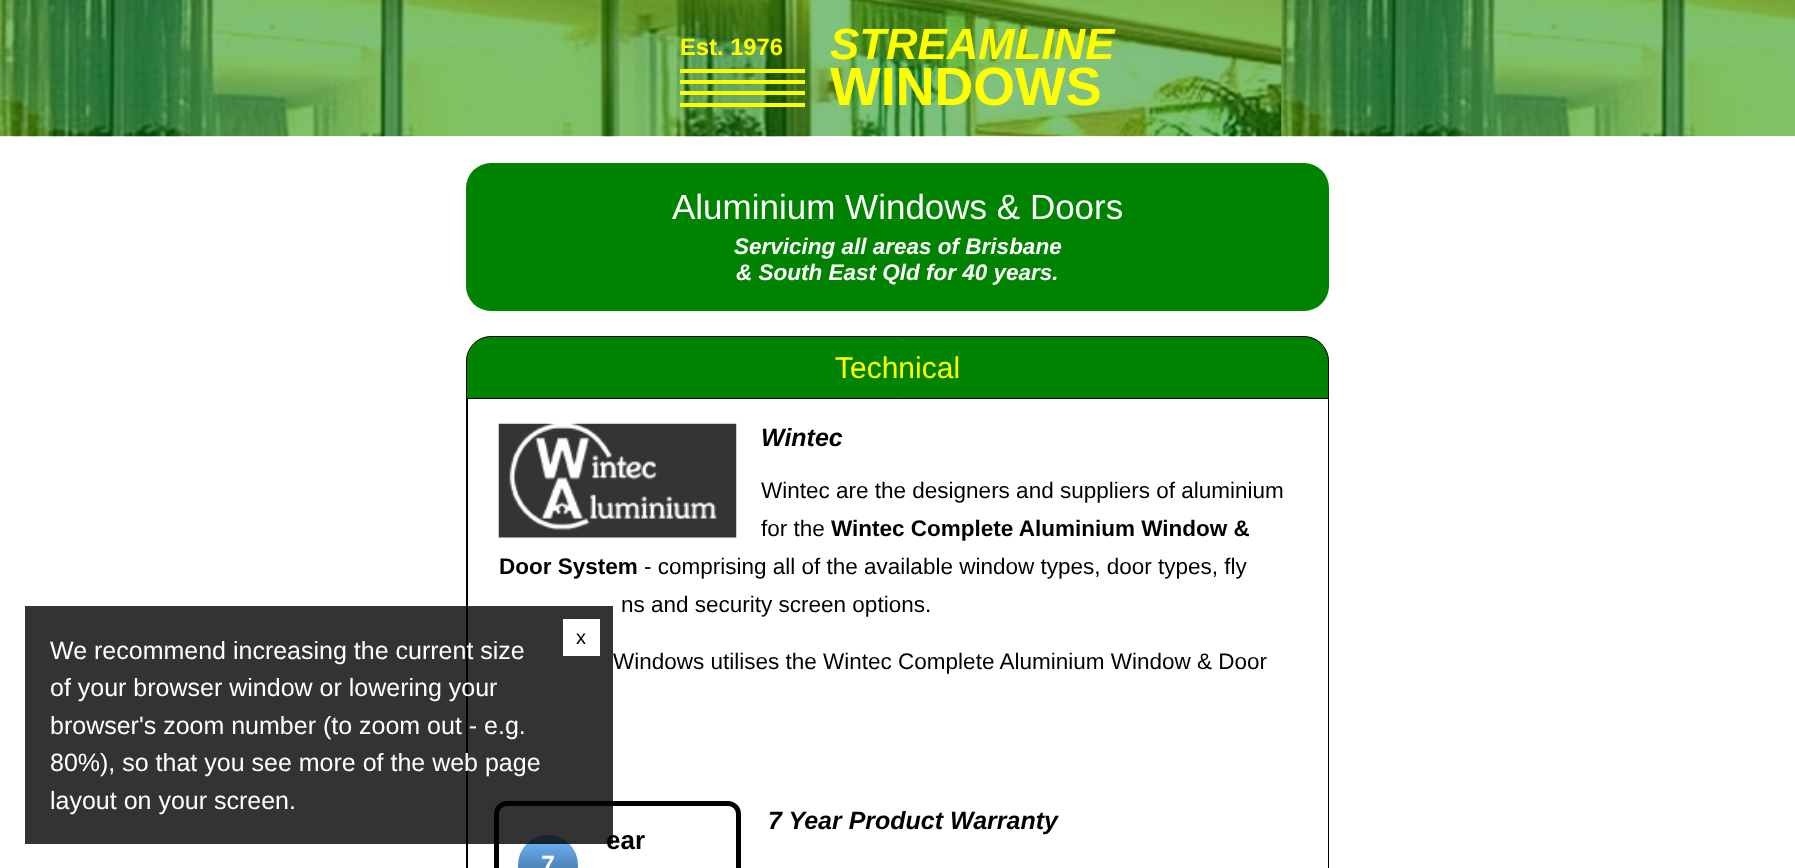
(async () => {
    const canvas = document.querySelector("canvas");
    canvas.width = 1795;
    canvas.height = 868;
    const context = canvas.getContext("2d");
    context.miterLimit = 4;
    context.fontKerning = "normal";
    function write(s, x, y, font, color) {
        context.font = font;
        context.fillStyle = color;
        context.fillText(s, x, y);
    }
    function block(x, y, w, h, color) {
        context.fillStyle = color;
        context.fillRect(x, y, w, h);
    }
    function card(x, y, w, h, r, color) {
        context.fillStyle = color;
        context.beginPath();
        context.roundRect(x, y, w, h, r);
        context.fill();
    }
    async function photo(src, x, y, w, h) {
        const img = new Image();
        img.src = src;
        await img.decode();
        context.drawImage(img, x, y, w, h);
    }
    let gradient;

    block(0, 0, 1795, 868, "rgb(255, 255, 255)");
    context.fillStyle = "rgb(0, 0, 0)";
    context.beginPath();
    context.moveTo(466, 399);
    context.lineTo(1329, 399);
    context.lineTo(1329, 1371);
    context.bezierCurveTo(1329, 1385, 1318, 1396, 1304, 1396);
    context.lineTo(491, 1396);
    context.bezierCurveTo(477, 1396, 466, 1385, 466, 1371);
    context.closePath();
    context.moveTo(468, 399);
    context.lineTo(1328, 399);
    context.lineTo(1328, 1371);
    context.bezierCurveTo(1328, 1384, 1317, 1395, 1304, 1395);
    context.lineTo(491, 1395);
    context.bezierCurveTo(478, 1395, 468, 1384, 468, 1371);
    context.closePath();
    context.fill("evenodd");
    write("Windows utilises the Wintec Complete Aluminium Window & Door", 613, 669, "22.5px Liberation Sans", "rgb(0, 0, 0)");
    context.beginPath();
    context.roundRect(496.5, 803.5, 242, 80, 10.5);
    context.strokeStyle = "rgb(0, 0, 0)";
    context.lineWidth = 5;
    context.stroke();
    write("ear", 606, 849, "bold 26px Liberation Sans", "rgb(0, 0, 0)");
    gradient = context.createLinearGradient(548, 835, 548, 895);
    gradient.addColorStop(0, "rgb(115, 186, 255)");
    gradient.addColorStop(1, "rgb(47, 87, 128)");
    context.fillStyle = gradient;
    context.beginPath();
    context.arc(548, 865, 30, 0, Math.PI * 2);
    context.fill();
    block(25, 606, 588, 238, "rgba(0, 0, 0, 0.8)");
    block(563, 619, 37, 37, "rgb(255, 255, 255)");
    write("x", 576, 644, "20px Liberation Sans", "rgb(0, 0, 0)");
    write("We recommend increasing the current size", 50, 659, "25px Liberation Sans", "rgb(255, 255, 255)");
    write("of your browser window or lowering your", 50, 696, "25px Liberation Sans", "rgb(255, 255, 255)");
    write("browser's zoom number (to zoom out - e.g.", 50, 734, "25px Liberation Sans", "rgb(255, 255, 255)");
    write("80%), so that you see more of the web page", 50, 771, "25px Liberation Sans", "rgb(255, 255, 255)");
    write("layout on your screen.", 50, 809, "25px Liberation Sans", "rgb(255, 255, 255)");
    await photo("media/1.png", 0, 0, 1795, 137);
    write("Est. 1976", 680, 55, "bold 23.75px Liberation Sans", "rgb(255, 255, 0)");
    block(680, 69, 125, 4, "rgb(255, 255, 0)");
    block(680, 80, 125, 4, "rgb(255, 255, 0)");
    block(680, 91, 125, 4, "rgb(255, 255, 0)");
    block(680, 103, 125, 4, "rgb(255, 255, 0)");
    write("STREAMLINE", 830, 59, "italic bold 43.75px Liberation Sans", "rgb(255, 255, 0)");
    write("WINDOWS", 830, 105, "bold 53.75px Liberation Sans", "rgb(255, 255, 0)");
    card(466, 163, 863, 148, 25, "rgb(0, 131, 0)");
    write("Aluminium Windows & Doors", 672, 219, "35px Liberation Sans", "rgb(255, 255, 255)");
    write("Servicing all areas of Brisbane", 734, 254, "italic bold 22.5px Liberation Sans", "rgb(255, 255, 255)");
    write("& South East Qld for 40 years.", 736, 280, "italic bold 22.5px Liberation Sans", "rgb(255, 255, 255)");
    context.fillStyle = "rgb(0, 131, 0)";
    context.beginPath();
    context.roundRect(466.5, 336.5, 862, 62, [24.5, 24.5, 0, 0]);
    context.fill();
    context.lineWidth = 1;
    context.stroke();
    write("Technical", 835, 378, "30px Liberation Sans", "rgb(255, 255, 0)");
    await photo("media/2.png", 498, 423, 239, 115);
    write("Wintec", 761, 446, "italic bold 25px Liberation Sans", "rgb(0, 0, 0)");
    write("Wintec are the designers and suppliers of aluminium", 761, 498, "22.5px Liberation Sans", "rgb(0, 0, 0)");
    write("for the", 761, 536, "22.5px Liberation Sans", "rgb(0, 0, 0)");
    write("Wintec Complete Aluminium Window &", 831, 536, "bold 22.5px Liberation Sans", "rgb(0, 0, 0)");
    write("Door System", 499, 574, "bold 22.5px Liberation Sans", "rgb(0, 0, 0)");
    write("- comprising all of the available window types, door types, fly", 644, 574, "22.5px Liberation Sans", "rgb(0, 0, 0)");
    write("ns and security screen options.", 621, 612, "22.5px Liberation Sans", "rgb(0, 0, 0)");
    write("7 Year Product Warranty", 768, 829, "italic bold 25px Liberation Sans", "rgb(0, 0, 0)");
    write("7", 541, 873, "bold 25px Liberation Sans", "rgb(255, 255, 255)");
})();
